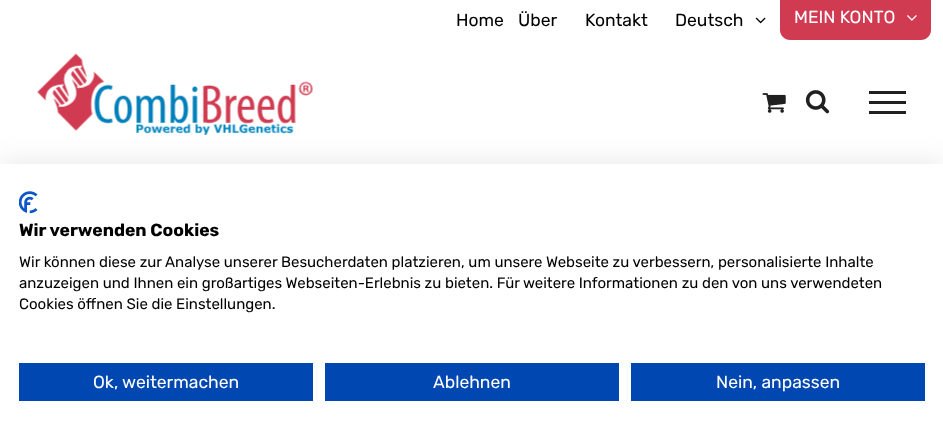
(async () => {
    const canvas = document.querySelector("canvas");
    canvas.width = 943;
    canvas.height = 434;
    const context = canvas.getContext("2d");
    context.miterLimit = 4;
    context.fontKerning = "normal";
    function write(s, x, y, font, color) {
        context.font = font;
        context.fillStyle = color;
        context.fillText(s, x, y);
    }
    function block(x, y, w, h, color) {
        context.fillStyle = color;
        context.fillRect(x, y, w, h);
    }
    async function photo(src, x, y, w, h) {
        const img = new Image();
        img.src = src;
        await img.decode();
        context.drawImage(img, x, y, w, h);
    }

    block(0, 0, 943, 434, "rgb(255, 255, 255)");
    write("Home", 456, 26, "17.5px Rubik", "rgb(0, 0, 0)");
    write("Über", 518, 26, "17.5px Rubik", "rgb(0, 0, 0)");
    write("Kontakt", 585, 26, "17.5px Rubik", "rgb(0, 0, 0)");
    write("Deutsch", 675, 26, "17.5px Rubik", "rgb(0, 0, 0)");
    await photo("media/1.png", 755, 17, 11, 7);
    context.fillStyle = "rgb(209, 59, 81)";
    context.beginPath();
    context.moveTo(780, -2);
    context.lineTo(931, -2);
    context.lineTo(931, 30);
    context.bezierCurveTo(931, 35.5, 926.5, 40, 921, 40);
    context.lineTo(790, 40);
    context.bezierCurveTo(784.5, 40, 780, 35.5, 780, 30);
    context.closePath();
    context.fill();
    write("MEIN KONTO", 794, 23, "17.5px Rubik", "rgb(255, 255, 255)");
    await photo("media/2.png", 907, 15, 10, 6);
    await photo("media/3.png", 37, 53, 276, 82);
    await photo("media/4.png", 762, 93, 24, 20);
    await photo("media/5.png", 805, 90, 25, 24);
    block(869, 91, 37, 3, "rgb(32, 32, 32)");
    block(869, 101, 37, 3, "rgb(32, 32, 32)");
    block(869, 111, 37, 3, "rgb(32, 32, 32)");
    context.fillStyle = "rgba(0, 0, 0, 0.1)";
    context.filter = "blur(15px)";
    context.beginPath();
    context.rect(0, 164, 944, 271);
    context.fill();
    context.filter = "none";
    block(0, 164, 943, 270, "rgb(255, 255, 255)");
    await photo("media/6.png", 19, 191, 19, 23);
    write("Wir verwenden Cookies", 19, 236, "bold 17.5px Rubik", "rgb(0, 0, 0)");
    write("Wir können diese zur Analyse unserer Besucherdaten platzieren, um unsere Webseite zu verbessern, personalisierte Inhalte", 19, 267, "15px Rubik", "rgb(0, 0, 0)");
    write("anzuzeigen und Ihnen ein großartiges Webseiten-Erlebnis zu bieten. Für weitere Informationen zu den von uns verwendeten", 19, 288, "15px Rubik", "rgb(0, 0, 0)");
    write("Cookies öffnen Sie die Einstellungen.", 19, 309, "15px Rubik", "rgb(0, 0, 0)");
    block(19, 363, 294, 38, "rgb(0, 71, 178)");
    write("Ok, weitermachen", 93, 388, "17.5px Rubik", "rgb(255, 255, 255)");
    block(325, 363, 294, 38, "rgb(0, 71, 178)");
    write("Ablehnen", 433, 388, "17.5px Rubik", "rgb(255, 255, 255)");
    block(631, 363, 294, 38, "rgb(0, 71, 178)");
    write("Nein, anpassen", 716, 388, "17.5px Rubik", "rgb(255, 255, 255)");
})();
